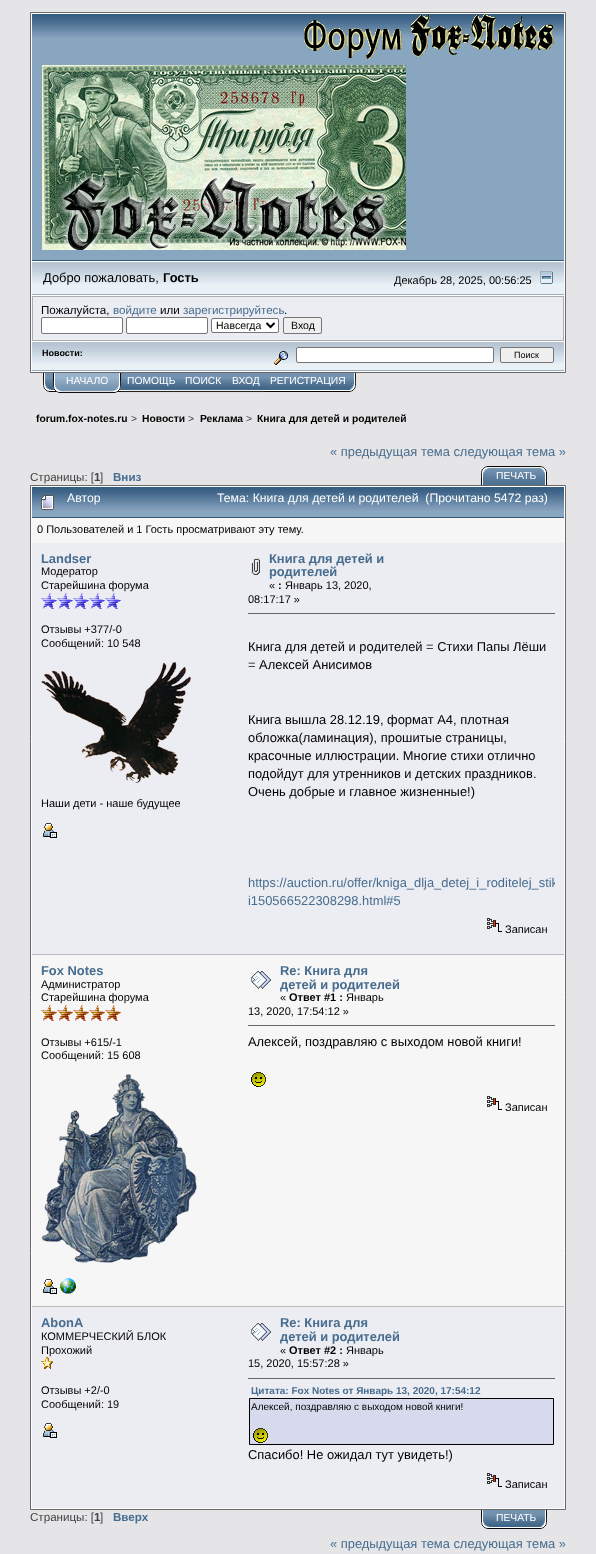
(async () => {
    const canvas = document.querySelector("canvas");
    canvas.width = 596;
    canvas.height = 1554;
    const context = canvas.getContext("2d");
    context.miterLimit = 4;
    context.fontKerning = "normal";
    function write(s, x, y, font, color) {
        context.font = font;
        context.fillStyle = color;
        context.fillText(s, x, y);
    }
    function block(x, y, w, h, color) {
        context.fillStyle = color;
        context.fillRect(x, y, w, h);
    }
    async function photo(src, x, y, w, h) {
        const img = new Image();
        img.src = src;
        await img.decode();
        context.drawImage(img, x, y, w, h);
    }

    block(0, 0, 596, 1554, "rgb(229, 229, 232)");
    context.fillStyle = "rgb(255, 255, 255)";
    context.beginPath();
    context.rect(30.5, 12.5, 535, 360);
    context.fill();
    context.strokeStyle = "rgb(105, 105, 105)";
    context.stroke();
    block(32, 38, 532, 222, "rgb(136, 166, 192)");
    await photo("media/1.png", 32, 14, 532, 24);
    block(32, 260, 532, 1, "rgb(55, 85, 118)");
    await photo("media/2.png", 304, 14, 250, 45);
    await photo("media/3.png", 42, 65, 364, 185);
    block(32, 284, 532, 10, "rgb(233, 240, 246)");
    await photo("media/4.png", 32, 262, 532, 22);
    block(32, 294, 532, 1, "rgb(155, 174, 191)");
    write("Добро пожаловать,", 43, 282, "12.9px Liberation Sans", "rgb(0, 0, 0)");
    write("Гость", 163, 282, "bold 12.9px Liberation Sans", "rgb(0, 0, 0)");
    write("Декабрь 28, 2025, 00:56:25", 394, 284, "11px Liberation Sans", "rgb(0, 0, 0)");
    await photo("media/5.png", 540, 271, 13, 13);
    block(32, 296, 532, 45, "rgb(173, 173, 173)");
    block(33, 297, 530, 43, "rgb(236, 237, 243)");
    write("Пожалуйста,", 41, 314, "11.6px Liberation Sans", "rgb(0, 0, 0)");
    write("войдите", 113, 314, "11.6px Liberation Sans", "rgb(71, 108, 142)");
    write("или", 160, 314, "11.6px Liberation Sans", "rgb(0, 0, 0)");
    write("зарегистрируйтесь", 183, 314, "11.6px Liberation Sans", "rgb(71, 108, 142)");
    write(".", 284, 314, "11.6px Liberation Sans", "rgb(0, 0, 0)");
    context.fillStyle = "rgb(255, 255, 255)";
    context.beginPath();
    context.roundRect(41.5, 317.5, 81, 16, 1.5);
    context.fill();
    context.strokeStyle = "rgb(118, 118, 118)";
    context.stroke();
    context.beginPath();
    context.roundRect(126.5, 317.5, 81, 16, 1.5);
    context.fill();
    context.stroke();
    context.beginPath();
    context.roundRect(211.5, 318.5, 67, 14, 1.5);
    context.fill();
    context.stroke();
    context.beginPath();
    context.moveTo(266.5, 323);
    context.lineTo(270.5, 327);
    context.lineTo(274.5, 323);
    context.strokeStyle = "rgb(0, 0, 0)";
    context.lineWidth = 2;
    context.stroke();
    write("Навсегда", 216, 329, "10.5px Liberation Sans", "rgb(0, 0, 0)");
    context.fillStyle = "rgb(239, 239, 239)";
    context.beginPath();
    context.roundRect(283.5, 317.5, 38, 16, 1.5);
    context.fill();
    context.strokeStyle = "rgb(118, 118, 118)";
    context.lineWidth = 1;
    context.stroke();
    write("Вход", 291, 329, "10.5px Liberation Sans", "rgb(0, 0, 0)");
    block(32, 364, 532, 6, "rgb(233, 240, 246)");
    await photo("media/4.png", 32, 342, 532, 22);
    block(32, 370, 532, 1, "rgb(155, 174, 191)");
    write("Новости:", 42, 356, "bold 9px Liberation Sans", "rgb(0, 0, 0)");
    await photo("media/6.png", 274, 351, 14, 14);
    context.fillStyle = "rgb(255, 255, 255)";
    context.beginPath();
    context.roundRect(296.5, 347.5, 197, 15, 1.5);
    context.fill();
    context.stroke();
    context.fillStyle = "rgb(239, 239, 239)";
    context.beginPath();
    context.roundRect(500.5, 347.5, 53, 15, 1.5);
    context.fill();
    context.stroke();
    write("Поиск", 514, 358, "9px Liberation Sans", "rgb(0, 0, 0)");
    await photo("media/7.png", 43, 373, 10, 19);
    await photo("media/8.png", 113, 373, 8, 20);
    await photo("media/9.png", 53, 373, 8, 20);
    await photo("media/10.png", 61, 373, 52, 20);
    write("НАЧАЛО", 66, 384, "10.3px Liberation Sans", "rgb(255, 255, 255)");
    await photo("media/11.png", 121, 373, 59, 20);
    write("ПОМОЩЬ", 127, 384, "10.3px Liberation Sans", "rgb(255, 255, 255)");
    await photo("media/12.png", 180, 373, 47, 20);
    write("ПОИСК", 185, 384, "10.3px Liberation Sans", "rgb(255, 255, 255)");
    await photo("media/13.png", 227, 373, 38, 20);
    write("ВХОД", 232, 384, "10.3px Liberation Sans", "rgb(255, 255, 255)");
    await photo("media/14.png", 265, 373, 91, 19);
    write("РЕГИСТРАЦИЯ", 270, 384, "10.3px Liberation Sans", "rgb(255, 255, 255)");
    write("forum.fox-notes.ru", 36, 422, "bold 10.3px Liberation Sans", "rgb(0, 0, 0)");
    write(">", 131, 422, "10.3px Liberation Sans", "rgb(68, 68, 68)");
    write("Новости", 142, 422, "bold 10.3px Liberation Sans", "rgb(0, 0, 0)");
    write(">", 188, 422, "10.3px Liberation Sans", "rgb(68, 68, 68)");
    write("Реклама", 200, 422, "bold 10.3px Liberation Sans", "rgb(0, 0, 0)");
    write(">", 246, 422, "10.3px Liberation Sans", "rgb(68, 68, 68)");
    write("Книга для детей и родителей", 257, 422, "bold 10.3px Liberation Sans", "rgb(0, 0, 0)");
    write("« предыдущая тема следующая тема »", 330, 456, "12.9px Liberation Sans", "rgb(71, 108, 142)");
    write("Страницы: [", 30, 481, "11.6px Liberation Sans", "rgb(68, 68, 68)");
    write("1", 94, 481, "bold 11.6px Liberation Sans", "rgb(68, 68, 68)");
    write("]", 100, 481, "11.6px Liberation Sans", "rgb(68, 68, 68)");
    write("Вниз", 113, 481, "bold 11.6px Liberation Sans", "rgb(71, 108, 142)");
    await photo("media/15.png", 481, 466, 40, 19);
    await photo("media/16.png", 491, 466, 56, 19);
    write("ПЕЧАТЬ", 496, 479, "10.3px Liberation Sans", "rgb(255, 255, 255)");
    context.beginPath();
    context.rect(30.5, 485.5, 535, 1024);
    context.fill();
    context.strokeStyle = "rgb(105, 105, 105)";
    context.stroke();
    block(32, 511, 532, 6, "rgb(136, 166, 192)");
    await photo("media/1.png", 32, 487, 532, 24);
    block(32, 517, 532, 1, "rgb(55, 85, 118)");
    await photo("media/17.png", 41, 495, 13, 15);
    write("Автор", 67, 502, "12.25px Liberation Sans", "rgb(255, 255, 255)");
    write("Тема: Книга для детей и родителей  (Прочитано 5472 раз)", 217, 502, "12.25px Liberation Sans", "rgb(255, 255, 255)");
    block(32, 518, 532, 25, "rgb(246, 246, 246)");
    write("0 Пользователей и 1 Гость просматривают эту тему.", 37, 533, "11px Liberation Sans", "rgb(0, 0, 0)");
    block(32, 543, 532, 411, "rgb(236, 237, 243)");
    write("Landser", 41, 563, "bold 12.9px Liberation Sans", "rgb(71, 108, 142)");
    write("Модератор", 41, 575, "11px Liberation Sans", "rgb(0, 0, 0)");
    write("Старейшина форума", 41, 589, "11px Liberation Sans", "rgb(0, 0, 0)");
    await photo("media/18.png", 41, 593, 16, 16);
    await photo("media/18.png", 57, 593, 16, 16);
    await photo("media/18.png", 73, 593, 16, 16);
    await photo("media/18.png", 89, 593, 16, 16);
    await photo("media/18.png", 105, 593, 16, 16);
    write("Отзывы +377/-0", 41, 633, "11px Liberation Sans", "rgb(0, 0, 0)");
    write("Сообщений: 10 548", 41, 647, "11px Liberation Sans", "rgb(0, 0, 0)");
    await photo("media/19.png", 41, 662, 150, 121);
    write("Наши дети - наше будущее", 41, 807, "11px Liberation Sans", "rgb(0, 0, 0)");
    await photo("media/20.png", 43, 823, 14, 15);
    await photo("media/21.png", 251, 558, 9, 17);
    write("Книга для детей и", 269, 563, "bold 12.9px Liberation Sans", "rgb(71, 108, 142)");
    write("родителей", 269, 576, "bold 12.9px Liberation Sans", "rgb(71, 108, 142)");
    write("«", 269, 589, "11px Liberation Sans", "rgb(0, 0, 0)");
    write(":", 278, 589, "bold 11px Liberation Sans", "rgb(0, 0, 0)");
    write("Январь 13, 2020,", 285, 589, "11px Liberation Sans", "rgb(0, 0, 0)");
    write("08:17:17 »", 248, 603, "11px Liberation Sans", "rgb(0, 0, 0)");
    block(248, 613, 307, 1, "rgb(102, 102, 102)");
    write("Книга для детей и родителей = Стихи Папы Лёши", 248, 651, "12.9px Liberation Sans", "rgb(0, 0, 0)");
    write("= Алексей Анисимов", 248, 669, "12.9px Liberation Sans", "rgb(0, 0, 0)");
    write("Книга вышла 28.12.19, формат А4, плотная", 248, 724, "12.9px Liberation Sans", "rgb(0, 0, 0)");
    write("обложка(ламинация), прошитые страницы,", 248, 742, "12.9px Liberation Sans", "rgb(0, 0, 0)");
    write("красочные иллюстрации. Многие стихи отлично", 248, 760, "12.9px Liberation Sans", "rgb(0, 0, 0)");
    write("подойдут для утренников и детских праздников.", 248, 778, "12.9px Liberation Sans", "rgb(0, 0, 0)");
    write("Очень добрые и главное жизненные!)", 248, 796, "12.9px Liberation Sans", "rgb(0, 0, 0)");
    context.save();
    context.beginPath();
    context.rect(248, 606, 307, 304);
    context.clip();
    write("https://auction.ru/offer/kniga_dlja_detej_i_roditelej_stik", 248, 887, "12.9px Liberation Sans", "rgb(71, 108, 142)");
    context.restore();
    write("i150566522308298.html#5", 248, 905, "12.9px Liberation Sans", "rgb(71, 108, 142)");
    await photo("media/22.png", 487, 918, 15, 14);
    write("Записан", 505, 933, "11px Liberation Sans", "rgb(0, 0, 0)");
    block(32, 955, 532, 351, "rgb(246, 246, 246)");
    block(32, 954, 532, 1, "rgb(187, 187, 187)");
    write("Fox Notes", 41, 975, "bold 12.9px Liberation Sans", "rgb(71, 108, 142)");
    write("Администратор", 41, 988, "11px Liberation Sans", "rgb(0, 0, 0)");
    write("Старейшина форума", 41, 1001, "11px Liberation Sans", "rgb(0, 0, 0)");
    await photo("media/23.png", 41, 1005, 16, 16);
    await photo("media/23.png", 57, 1005, 16, 16);
    await photo("media/23.png", 73, 1005, 16, 16);
    await photo("media/23.png", 89, 1005, 16, 16);
    await photo("media/23.png", 105, 1005, 16, 16);
    write("Отзывы +615/-1", 41, 1046, "11px Liberation Sans", "rgb(0, 0, 0)");
    write("Сообщений: 15 608", 41, 1059, "11px Liberation Sans", "rgb(0, 0, 0)");
    await photo("media/24.png", 41, 1074, 156, 189);
    await photo("media/25.png", 43, 1279, 14, 15);
    await photo("media/26.png", 60, 1278, 16, 16);
    await photo("media/27.png", 251, 971, 20, 18);
    write("Re: Книга для", 280, 975, "bold 12.9px Liberation Sans", "rgb(71, 108, 142)");
    write("детей и родителей", 280, 989, "bold 12.9px Liberation Sans", "rgb(71, 108, 142)");
    write("«", 280, 1001, "11px Liberation Sans", "rgb(0, 0, 0)");
    write("Ответ #1 :", 289, 1001, "bold 11px Liberation Sans", "rgb(0, 0, 0)");
    write("Январь", 346, 1001, "11px Liberation Sans", "rgb(0, 0, 0)");
    write("13, 2020, 17:54:12 »", 248, 1015, "11px Liberation Sans", "rgb(0, 0, 0)");
    block(248, 1025, 307, 1, "rgb(102, 102, 102)");
    write("Алексей, поздравляю с выходом новой книги!", 248, 1046, "12.9px Liberation Sans", "rgb(0, 0, 0)");
    await photo("media/28.png", 251, 1072, 15, 15);
    await photo("media/29.png", 487, 1096, 15, 14);
    write("Записан", 505, 1111, "11px Liberation Sans", "rgb(0, 0, 0)");
    block(32, 1307, 532, 201, "rgb(236, 237, 243)");
    block(32, 1306, 532, 1, "rgb(187, 187, 187)");
    write("AbonA", 41, 1327, "bold 12.9px Liberation Sans", "rgb(71, 108, 142)");
    write("КОММЕРЧЕСКИЙ БЛОК", 41, 1340, "11px Liberation Sans", "rgb(0, 0, 0)");
    write("Прохожий", 41, 1354, "11px Liberation Sans", "rgb(0, 0, 0)");
    await photo("media/30.png", 41, 1357, 12, 12);
    write("Отзывы +2/-0", 41, 1394, "11px Liberation Sans", "rgb(0, 0, 0)");
    write("Сообщений: 19", 41, 1408, "11px Liberation Sans", "rgb(0, 0, 0)");
    await photo("media/20.png", 43, 1423, 14, 15);
    await photo("media/31.png", 251, 1323, 20, 18);
    write("Re: Книга для", 280, 1327, "bold 12.9px Liberation Sans", "rgb(71, 108, 142)");
    write("детей и родителей", 280, 1341, "bold 12.9px Liberation Sans", "rgb(71, 108, 142)");
    write("«", 280, 1354, "11px Liberation Sans", "rgb(0, 0, 0)");
    write("Ответ #2 :", 289, 1354, "bold 11px Liberation Sans", "rgb(0, 0, 0)");
    write("Январь", 346, 1354, "11px Liberation Sans", "rgb(0, 0, 0)");
    write("15, 2020, 15:57:28 »", 248, 1367, "11px Liberation Sans", "rgb(0, 0, 0)");
    block(248, 1378, 307, 1, "rgb(102, 102, 102)");
    write("Цитата: Fox Notes от Январь 13, 2020, 17:54:12", 251, 1394, "bold 10px Liberation Sans", "rgb(71, 108, 142)");
    context.fillStyle = "rgb(215, 218, 236)";
    context.beginPath();
    context.rect(249.5, 1398.5, 304, 46);
    context.fill();
    context.strokeStyle = "rgb(0, 0, 0)";
    context.stroke();
    write("Алексей, поздравляю с выходом новой книги!", 251, 1410, "10px Liberation Sans", "rgb(0, 0, 0)");
    await photo("media/32.png", 253, 1428, 15, 15);
    write("Спасибо! Не ожидал тут увидеть!)", 248, 1459, "12.9px Liberation Sans", "rgb(0, 0, 0)");
    await photo("media/22.png", 487, 1473, 15, 14);
    write("Записан", 505, 1488, "11px Liberation Sans", "rgb(0, 0, 0)");
    write("Страницы: [", 30, 1521, "11.6px Liberation Sans", "rgb(68, 68, 68)");
    write("1", 94, 1521, "bold 11.6px Liberation Sans", "rgb(68, 68, 68)");
    write("]", 100, 1521, "11.6px Liberation Sans", "rgb(68, 68, 68)");
    write("Вверх", 113, 1521, "bold 11.6px Liberation Sans", "rgb(71, 108, 142)");
    await photo("media/33.png", 481, 1510, 40, 19);
    await photo("media/34.png", 521, 1510, 26, 19);
    write("ПЕЧАТЬ", 496, 1521, "10.3px Liberation Sans", "rgb(255, 255, 255)");
    write("« предыдущая тема следующая тема »", 330, 1548, "12.9px Liberation Sans", "rgb(71, 108, 142)");
})();
